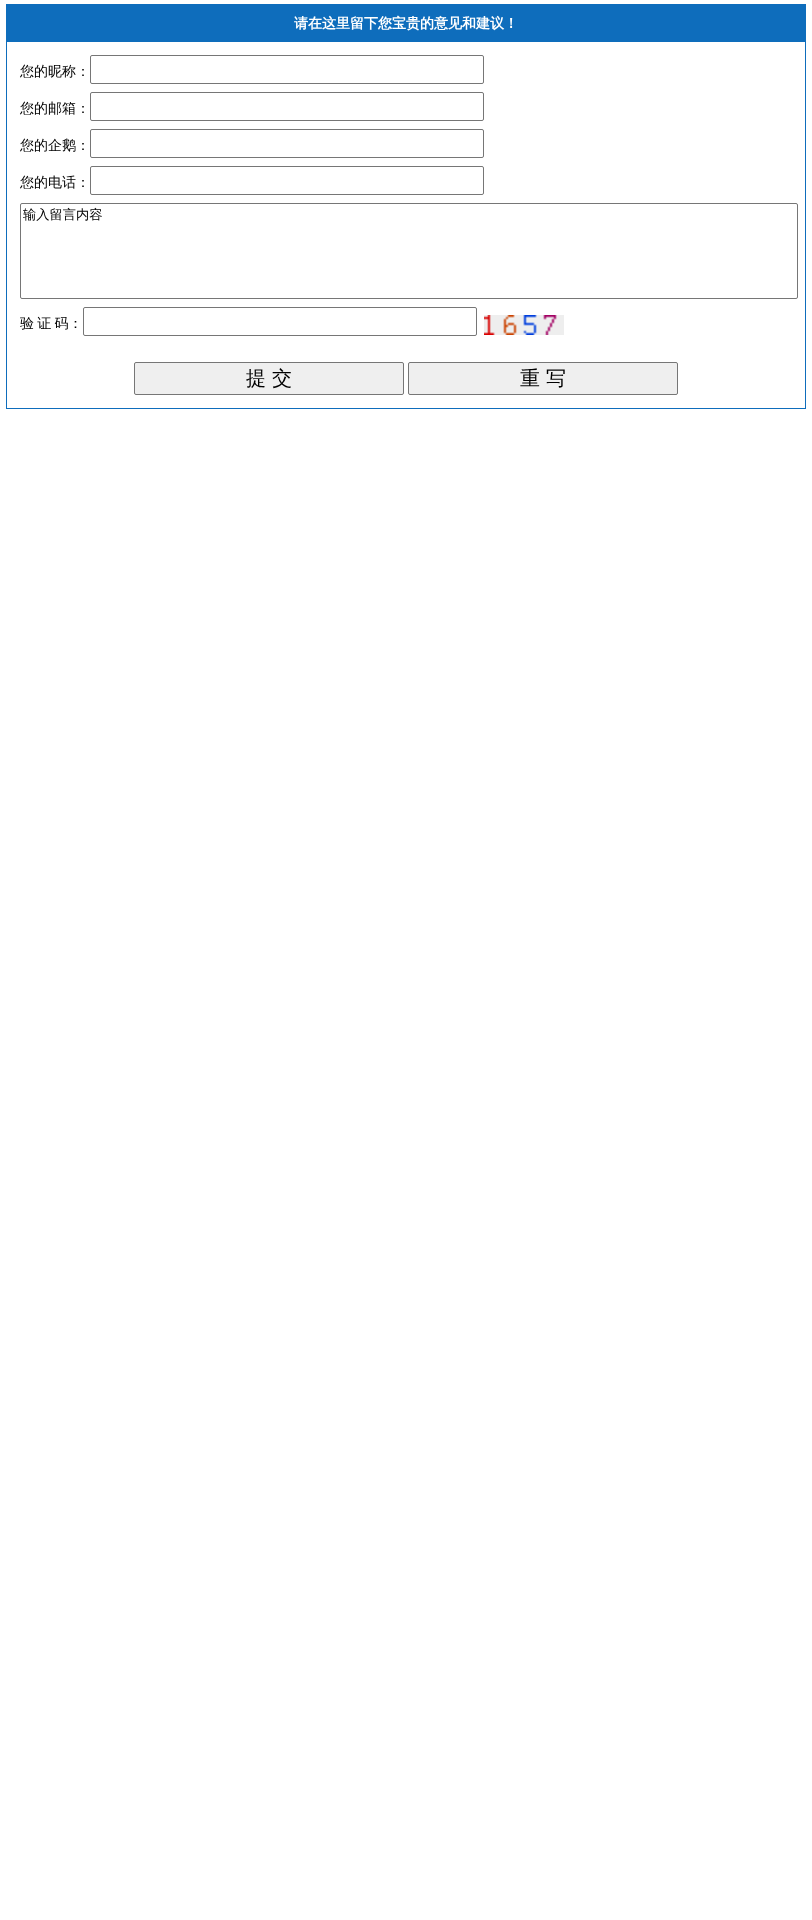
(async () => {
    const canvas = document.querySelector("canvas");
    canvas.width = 812;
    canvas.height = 1920;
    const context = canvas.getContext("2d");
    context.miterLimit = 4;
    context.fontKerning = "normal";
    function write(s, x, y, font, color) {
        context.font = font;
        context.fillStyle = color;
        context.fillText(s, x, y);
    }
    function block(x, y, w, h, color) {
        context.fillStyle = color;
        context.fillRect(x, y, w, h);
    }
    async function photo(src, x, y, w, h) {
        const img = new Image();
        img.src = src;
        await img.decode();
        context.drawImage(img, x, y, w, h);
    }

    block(0, 0, 812, 1920, "rgb(255, 255, 255)");
    block(6, 4, 800, 405, "rgb(14, 109, 188)");
    write("请在这里留下您宝贵的意见和建议！", 294, 28, "bold 14px WenQuanYi Zen Hei", "rgb(255, 255, 255)");
    block(7, 42, 798, 366, "rgb(255, 255, 255)");
    write("您的昵称：", 20, 76, "500 14px WenQuanYi Zen Hei", "rgb(0, 0, 0)");
    context.beginPath();
    context.roundRect(90.5, 55.5, 393, 28, 1.5);
    context.strokeStyle = "rgb(118, 118, 118)";
    context.stroke();
    write("您的邮箱：", 20, 113, "500 14px WenQuanYi Zen Hei", "rgb(0, 0, 0)");
    context.beginPath();
    context.roundRect(90.5, 92.5, 393, 28, 1.5);
    context.stroke();
    write("您的企鹅：", 20, 150, "500 14px WenQuanYi Zen Hei", "rgb(0, 0, 0)");
    context.beginPath();
    context.roundRect(90.5, 129.5, 393, 28, 1.5);
    context.stroke();
    write("您的电话：", 20, 187, "500 14px WenQuanYi Zen Hei", "rgb(0, 0, 0)");
    context.beginPath();
    context.roundRect(90.5, 166.5, 393, 28, 1.5);
    context.stroke();
    context.beginPath();
    context.roundRect(20.5, 203.5, 777, 95, 1.5);
    context.stroke();
    write("输入留言内容", 23, 219, "500 13.25px WenQuanYi Zen Hei", "rgb(0, 0, 0)");
    context.wordSpacing = "-1px";
    write("验 证 码：", 20, 328, "500 14px WenQuanYi Zen Hei", "rgb(0, 0, 0)");
    context.beginPath();
    context.roundRect(83.5, 307.5, 393, 28, 1.5);
    context.stroke();
    await photo("media/1.png", 484, 315, 80, 20);
    context.fillStyle = "rgb(239, 239, 239)";
    context.beginPath();
    context.roundRect(134.5, 362.5, 269, 32, 1.5);
    context.fill();
    context.stroke();
    context.wordSpacing = "0px";
    write("提 交", 246, 385, "500 20px WenQuanYi Zen Hei", "rgb(0, 0, 0)");
    context.fillStyle = "rgb(239, 239, 239)";
    context.beginPath();
    context.roundRect(408.5, 362.5, 269, 32, 1.5);
    context.fill();
    context.stroke();
    write("重 写", 520, 385, "500 20px WenQuanYi Zen Hei", "rgb(0, 0, 0)");
})();
